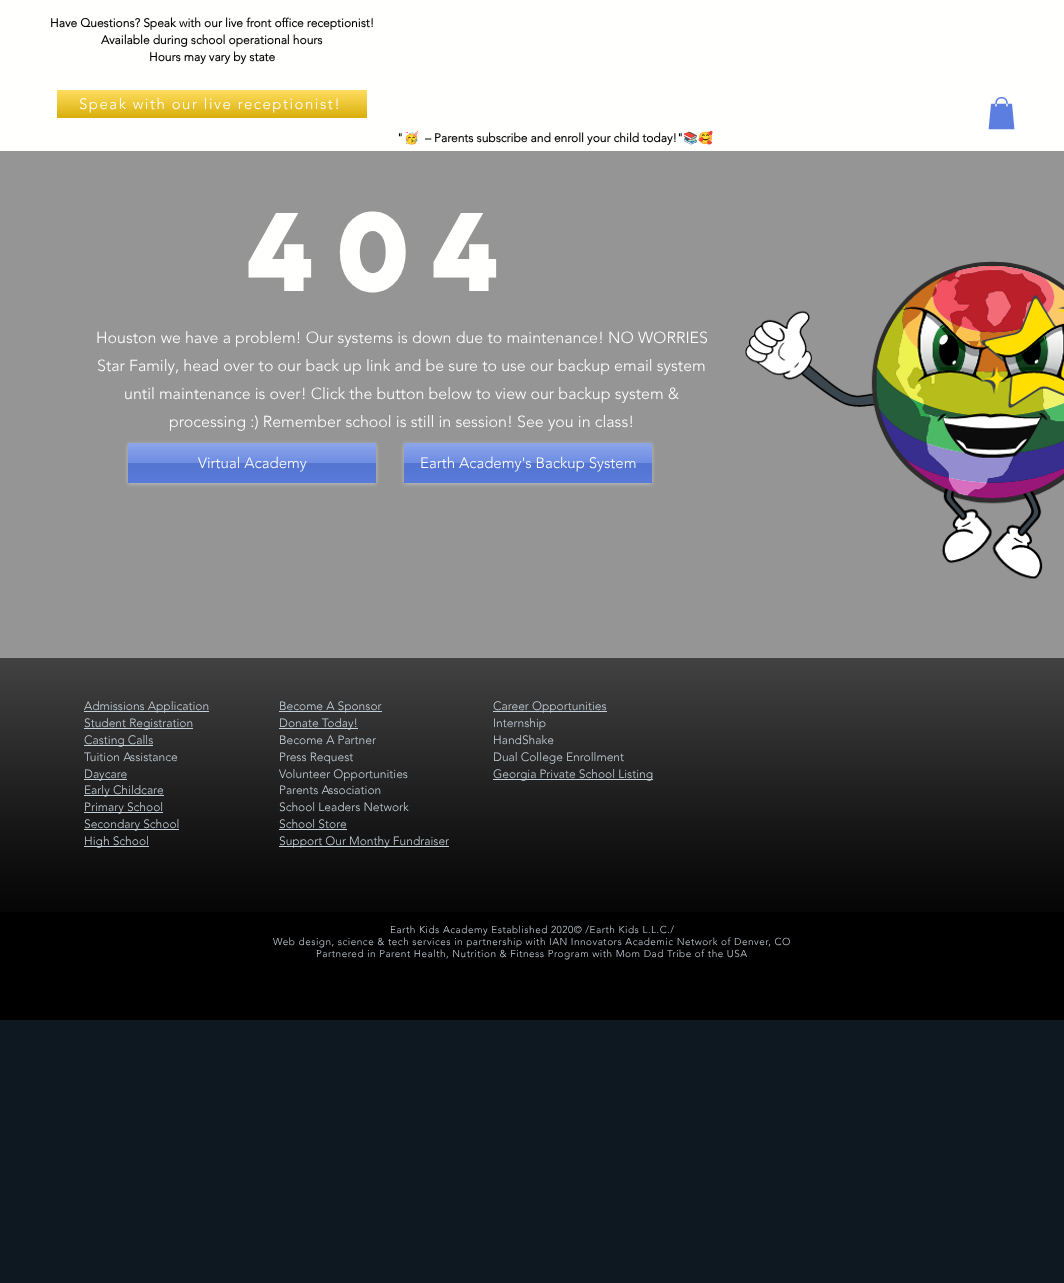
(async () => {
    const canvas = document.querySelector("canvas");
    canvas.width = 1064;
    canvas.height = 1283;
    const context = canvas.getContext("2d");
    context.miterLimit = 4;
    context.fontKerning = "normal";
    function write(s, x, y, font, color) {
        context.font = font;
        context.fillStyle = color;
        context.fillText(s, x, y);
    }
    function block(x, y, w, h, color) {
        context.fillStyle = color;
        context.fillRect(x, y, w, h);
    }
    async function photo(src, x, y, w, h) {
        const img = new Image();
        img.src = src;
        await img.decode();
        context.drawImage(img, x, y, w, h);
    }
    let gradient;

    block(0, 0, 1064, 1283, "rgb(14, 24, 33)");
    block(0, 0, 1064, 151, "rgb(255, 255, 254)");
    write("Have Questions? Speak with our live front office receptionist!", 50, 27, "bold 12px 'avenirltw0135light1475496'", "rgb(0, 0, 0)");
    write("Available during school operational hours", 101, 44, "bold 12px 'avenirltw0135light1475496'", "rgb(0, 0, 0)");
    write("Hours may vary by state", 149, 61, "bold 12px 'avenirltw0135light1475496'", "rgb(0, 0, 0)");
    gradient = context.createLinearGradient(212, 90, 212, 118);
    gradient.addColorStop(0, "rgb(255, 222, 95)");
    gradient.addColorStop(1, "rgb(216, 174, 11)");
    context.fillStyle = gradient;
    context.fillRect(57, 90, 310, 28);
    context.letterSpacing = "1.5px";
    write("Speak with our live receptionist!", 79, 109, "300 15px 'avenirltw0135light1475496'", "rgb(255, 255, 254)");
    await photo("media/1.png", 988, 97, 27, 33);
    context.letterSpacing = "0px";
    write("\"", 397, 142, "bold 12px 'avenirltw0135light1475496'", "rgb(0, 0, 0)");
    write("🥳", 404, 142, "bold 12px Noto Color Emoji", "rgb(0, 0, 0)");
    write("– Parents subscribe and enroll your child today!\"", 425, 142, "bold 12px 'avenirltw0135light1475496'", "rgb(0, 0, 0)");
    write("📚🥰", 683, 142, "bold 12px Noto Color Emoji", "rgb(0, 0, 0)");
    block(0, 151, 1064, 507, "rgb(149, 149, 149)");
    write("404", 247, 291, "bold 100px 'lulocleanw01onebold'", "rgb(255, 255, 254)");
    write("Houston we have a problem! Our systems is down due to maintenance! NO WORRIES", 96, 343, "300 16px 'avenirltw0135light1475496'", "rgb(255, 255, 254)");
    write("Star Family, head over to our back up link and be sure to use our backup email system", 97, 371, "300 16px 'avenirltw0135light1475496'", "rgb(255, 255, 254)");
    write("until maintenance is over! Click the button below to view our backup system &", 124, 399, "300 16px 'avenirltw0135light1475496'", "rgb(255, 255, 254)");
    write("processing :) Remember school is still in session! See you in class!", 169, 427, "300 16px 'avenirltw0135light1475496'", "rgb(255, 255, 254)");
    context.fillStyle = "rgba(219, 219, 219, 0.6)";
    context.filter = "blur(2px)";
    context.beginPath();
    context.rect(128, 444, 248, 40);
    context.fill();
    context.filter = "none";
    block(128, 443, 248, 40, "rgb(91, 126, 224)");
    await photo("media/2.png", 128, 443, 248, 40);
    write("Virtual Academy", 198, 468, "300 15px 'avenirltw0135light1475496'", "rgb(255, 255, 254)");
    context.fillStyle = "rgba(219, 219, 219, 0.6)";
    context.filter = "blur(2px)";
    context.beginPath();
    context.rect(404, 444, 248, 40);
    context.fill();
    context.filter = "none";
    block(404, 443, 248, 40, "rgb(91, 126, 224)");
    await photo("media/2.png", 404, 443, 248, 40);
    write("Earth Academy's Backup System", 420, 468, "300 15px 'avenirltw0135light1475496'", "rgb(255, 255, 254)");
    await photo("media/3.png", 745, 261, 319, 318);
    block(0, 658, 1064, 362, "rgb(0, 0, 0)");
    await photo("media/4.png", 0, 658, 1064, 254);
    block(84, 711, 125, 1, "rgb(197, 208, 217)");
    write("Admissions Application", 84, 710, "300 12px 'avenirltw0135light1475496'", "rgb(197, 208, 217)");
    block(84, 728, 109, 1, "rgb(197, 208, 217)");
    write("Student Registration", 84, 727, "300 12px 'avenirltw0135light1475496'", "rgb(197, 208, 217)");
    block(84, 745, 69, 1, "rgb(197, 208, 217)");
    write("Casting Calls", 84, 744, "300 12px 'avenirltw0135light1475496'", "rgb(197, 208, 217)");
    write("Tuition Assistance", 84, 761, "300 12px 'avenirltw0135light1475496'", "rgb(197, 208, 217)");
    block(84, 779, 43, 1, "rgb(197, 208, 217)");
    write("Daycare", 84, 778, "300 12px 'avenirltw0135light1475496'", "rgb(197, 208, 217)");
    block(84, 795, 80, 1, "rgb(197, 208, 217)");
    write("Early Childcare", 84, 794, "300 12px 'avenirltw0135light1475496'", "rgb(197, 208, 217)");
    block(84, 812, 79, 1, "rgb(197, 208, 217)");
    write("Primary School", 84, 811, "300 12px 'avenirltw0135light1475496'", "rgb(197, 208, 217)");
    block(84, 829, 95, 1, "rgb(197, 208, 217)");
    write("Secondary School", 84, 828, "300 12px 'avenirltw0135light1475496'", "rgb(197, 208, 217)");
    block(84, 846, 65, 1, "rgb(197, 208, 217)");
    write("High School", 84, 845, "300 12px 'avenirltw0135light1475496'", "rgb(197, 208, 217)");
    block(279, 711, 103, 1, "rgb(197, 208, 217)");
    write("Become A Sponsor", 279, 710, "300 12px 'avenirltw0135light1475496'", "rgb(197, 208, 217)");
    block(279, 728, 79, 1, "rgb(197, 208, 217)");
    write("Donate Today!", 279, 727, "300 12px 'avenirltw0135light1475496'", "rgb(197, 208, 217)");
    write("Become A Partner", 279, 744, "300 12px 'avenirltw0135light1475496'", "rgb(197, 208, 217)");
    write("Press Request", 279, 761, "300 12px 'avenirltw0135light1475496'", "rgb(197, 208, 217)");
    write("Volunteer Opportunities", 279, 778, "300 12px 'avenirltw0135light1475496'", "rgb(197, 208, 217)");
    write("Parents Association", 279, 794, "300 12px 'avenirltw0135light1475496'", "rgb(197, 208, 217)");
    write("School Leaders Network", 279, 811, "300 12px 'avenirltw0135light1475496'", "rgb(197, 208, 217)");
    write("School Store", 279, 828, "300 12px 'avenirltw0135light1475496'", "rgb(197, 208, 217)");
    block(279, 829, 68, 1, "rgb(197, 208, 217)");
    block(279, 846, 170, 1, "rgb(197, 208, 217)");
    write("Support Our Monthy Fundraiser", 279, 845, "300 12px 'avenirltw0135light1475496'", "rgb(197, 208, 217)");
    block(493, 711, 114, 1, "rgb(197, 208, 217)");
    write("Career Opportunities", 493, 710, "300 12px 'avenirltw0135light1475496'", "rgb(197, 208, 217)");
    write("Internship", 493, 727, "300 12px 'avenirltw0135light1475496'", "rgb(197, 208, 217)");
    write("HandShake", 493, 744, "300 12px 'avenirltw0135light1475496'", "rgb(197, 208, 217)");
    write("Dual College Enrollment", 493, 761, "300 12px 'avenirltw0135light1475496'", "rgb(197, 208, 217)");
    block(493, 779, 160, 1, "rgb(197, 208, 217)");
    write("Georgia Private School Listing", 493, 778, "300 12px 'avenirltw0135light1475496'", "rgb(197, 208, 217)");
    context.letterSpacing = "0.5px";
    write("Earth Kids Academy Established 2020© /Earth Kids L.L.C./", 390, 933, "300 10px 'avenirltw0135light1475496'", "rgb(197, 208, 217)");
    write("Web design, science & tech services in partnership with IAN Innovators Academic Network of Denver, CO", 273, 945, "300 10px 'avenirltw0135light1475496'", "rgb(197, 208, 217)");
    write("Partnered in Parent Health, Nutrition & Fitness Program with Mom Dad Tribe of the USA", 316, 957, "300 10px 'avenirltw0135light1475496'", "rgb(197, 208, 217)");
})();
